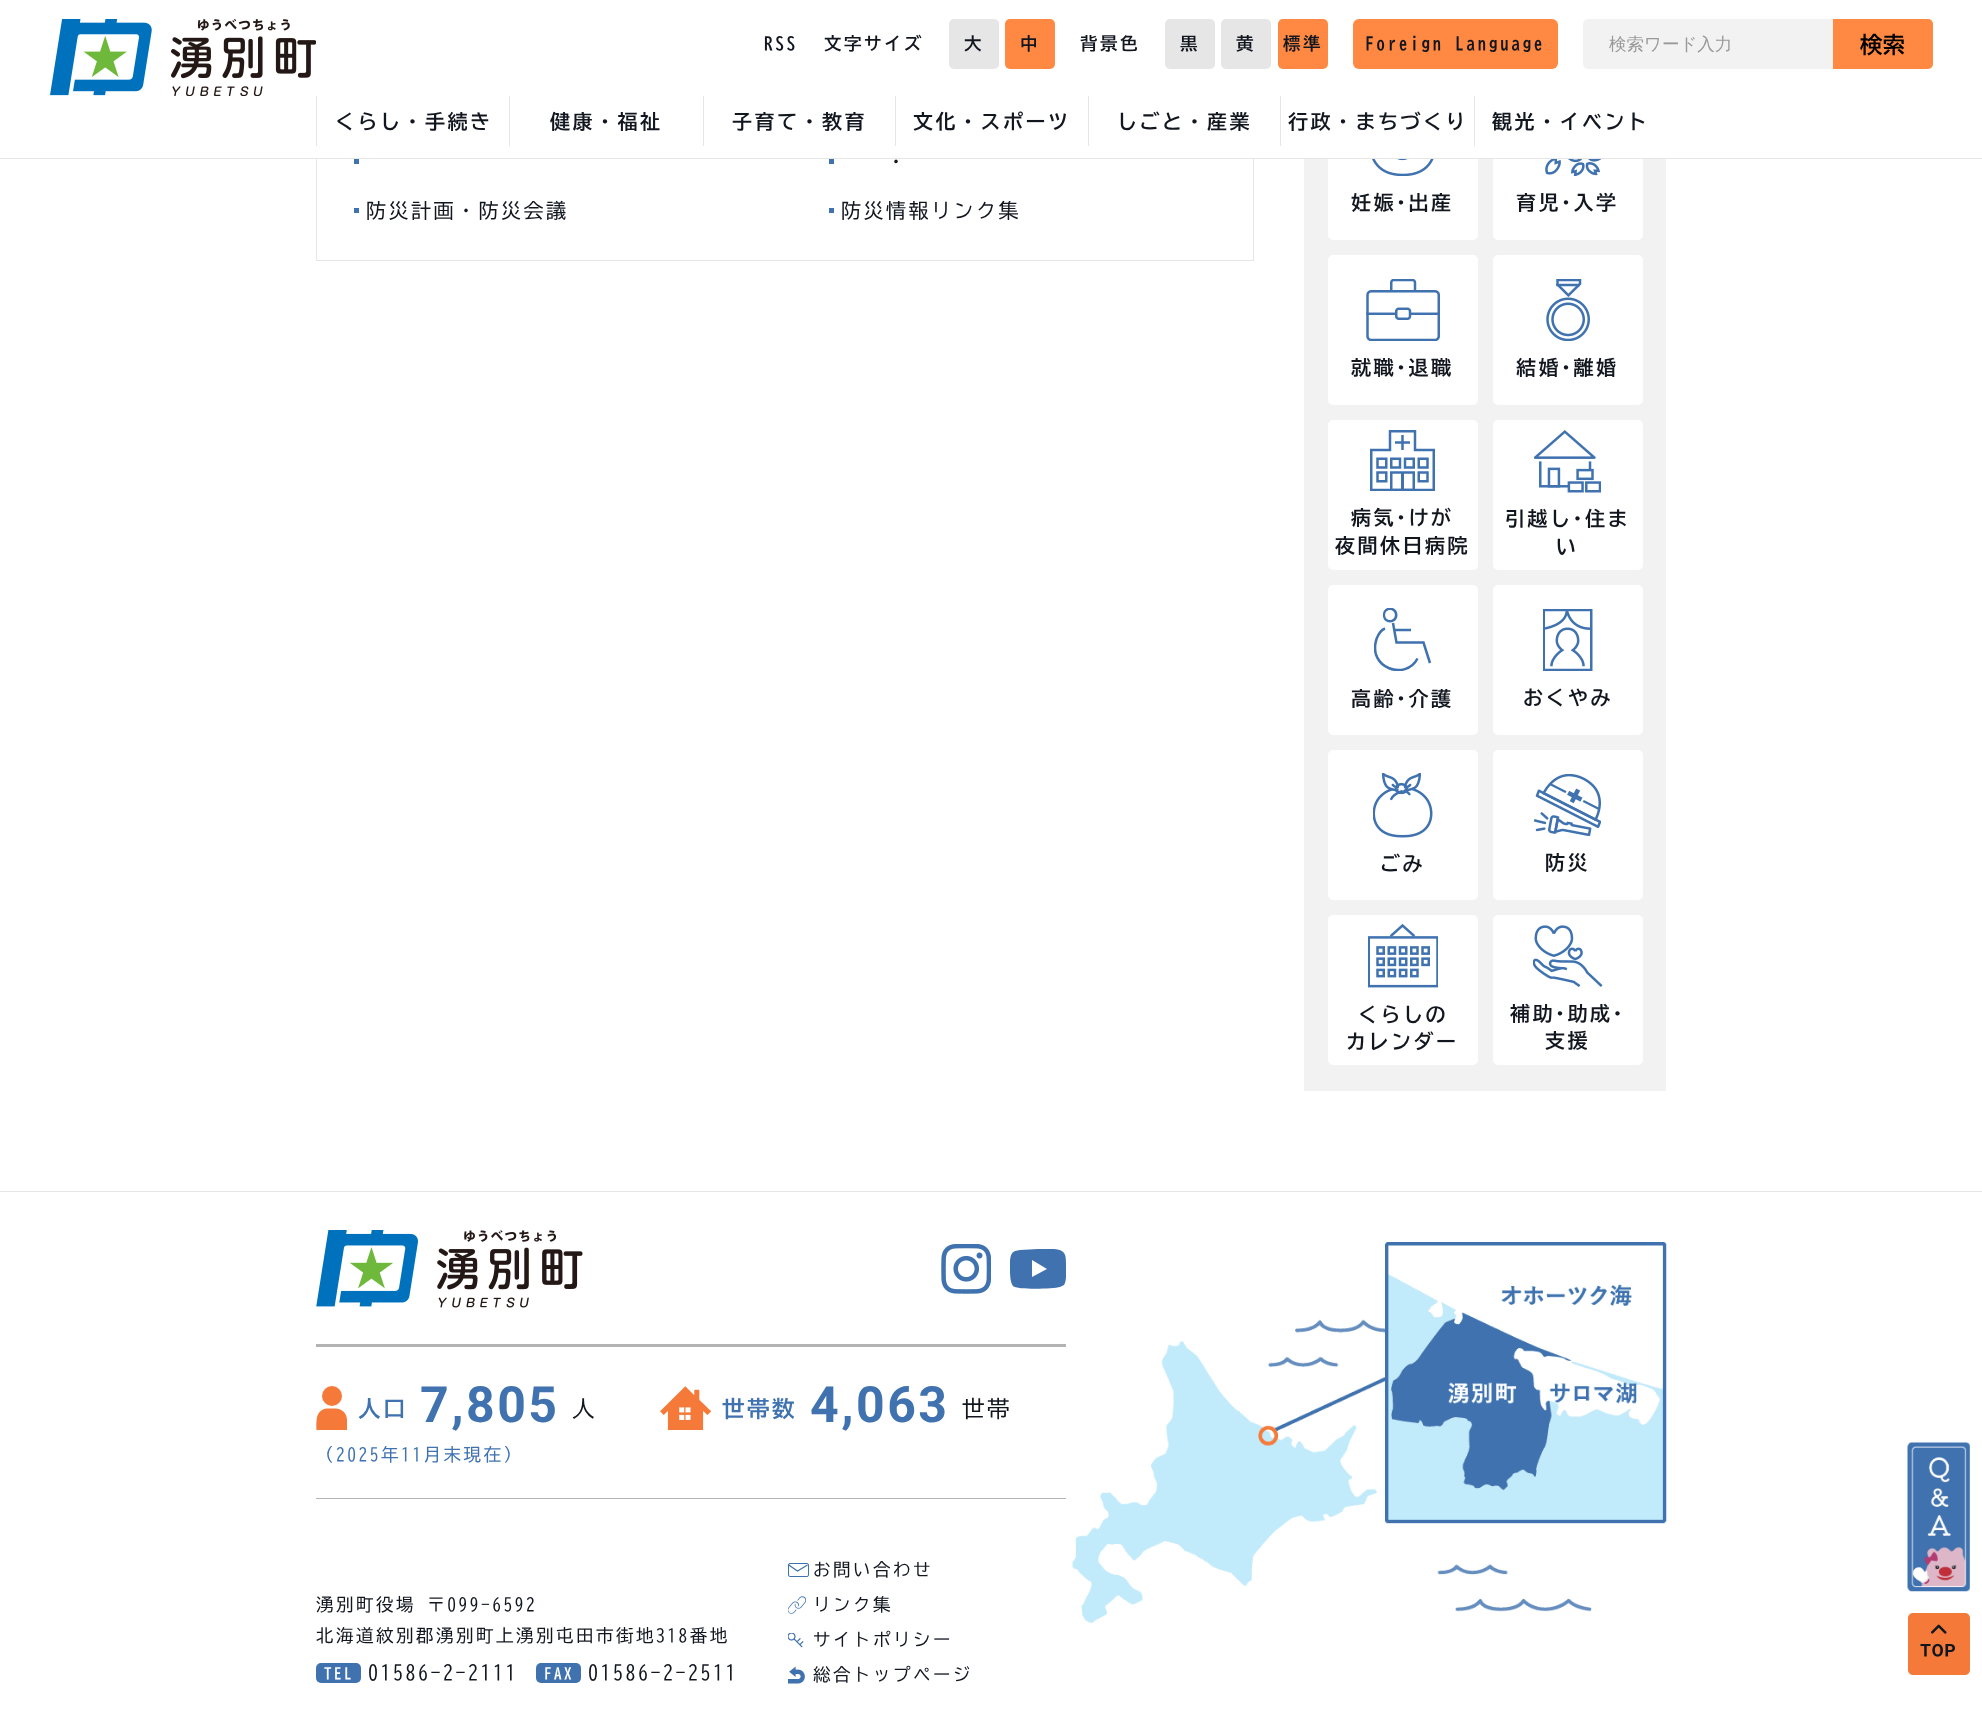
(async () => {
    const canvas = document.querySelector("canvas");
    canvas.width = 1982;
    canvas.height = 1724;
    const context = canvas.getContext("2d");
    context.miterLimit = 4;
    context.fontKerning = "normal";
    function write(s, x, y, font, color) {
        context.font = font;
        context.fillStyle = color;
        context.fillText(s, x, y);
    }
    function block(x, y, w, h, color) {
        context.fillStyle = color;
        context.fillRect(x, y, w, h);
    }
    function card(x, y, w, h, r, color) {
        context.fillStyle = color;
        context.beginPath();
        context.roundRect(x, y, w, h, r);
        context.fill();
    }
    async function photo(src, x, y, w, h) {
        const img = new Image();
        img.src = src;
        await img.decode();
        context.drawImage(img, x, y, w, h);
    }

    block(0, 0, 1982, 1724, "rgb(255, 255, 255)");
    await photo("media/1.png", 50, 19, 266, 77);
    context.letterSpacing = "2.5px";
    write("RSS", 764, 50, "bold 17.5px BIZ UDGothic", "rgb(17, 22, 31)");
    write("文字サイズ", 824, 50, "bold 17.5px BIZ UDGothic", "rgb(17, 22, 31)");
    card(949, 19, 50, 50, 5, "rgb(230, 230, 230)");
    write("大", 964, 50, "bold 17.5px BIZ UDGothic", "rgb(17, 22, 31)");
    card(1005, 19, 50, 50, 5, "rgb(255, 137, 67)");
    write("中", 1020, 50, "bold 17.5px BIZ UDGothic", "rgb(17, 22, 31)");
    write("背景色", 1080, 50, "bold 17.5px BIZ UDGothic", "rgb(17, 22, 31)");
    card(1165, 19, 50, 50, 5, "rgb(230, 230, 230)");
    write("黒", 1180, 50, "bold 17.5px BIZ UDGothic", "rgb(17, 22, 31)");
    card(1221, 19, 50, 50, 5, "rgb(230, 230, 230)");
    write("黄", 1236, 50, "bold 17.5px BIZ UDGothic", "rgb(17, 22, 31)");
    card(1278, 19, 50, 50, 5, "rgb(255, 137, 67)");
    write("標準", 1283, 50, "bold 17.5px BIZ UDGothic", "rgb(17, 22, 31)");
    card(1353, 19, 205, 50, 6, "rgb(255, 137, 67)");
    write("Foreign Language", 1365, 50, "bold 17.5px BIZ UDGothic", "rgb(17, 22, 31)");
    context.fillStyle = "rgb(242, 242, 242)";
    context.beginPath();
    context.roundRect(1583.5, 19.5, 349, 49, 4.5);
    context.fill();
    context.strokeStyle = "rgb(242, 242, 242)";
    context.stroke();
    context.letterSpacing = "0px";
    write("検索ワード入力", 1609, 50, "500 17.5px WenQuanYi Zen Hei", "rgb(153, 153, 153)");
    context.fillStyle = "rgb(255, 137, 67)";
    context.beginPath();
    context.roundRect(1833, 19, 100, 50, [0, 5, 5, 0]);
    context.fill();
    write("検索", 1860, 53, "bold 22.5px BIZ UDGothic", "rgb(0, 0, 0)");
    block(316, 96, 1, 50, "rgb(230, 230, 230)");
    context.letterSpacing = "2.5px";
    write("くらし・手続き", 335, 129, "bold 20px BIZ UDGothic", "rgb(17, 22, 31)");
    block(509, 96, 1, 50, "rgb(230, 230, 230)");
    write("健康・福祉", 550, 129, "bold 20px BIZ UDGothic", "rgb(17, 22, 31)");
    block(703, 96, 1, 50, "rgb(230, 230, 230)");
    write("子育て・教育", 732, 129, "bold 20px BIZ UDGothic", "rgb(17, 22, 31)");
    block(895, 96, 1, 50, "rgb(230, 230, 230)");
    write("文化・スポーツ", 913, 129, "bold 20px BIZ UDGothic", "rgb(17, 22, 31)");
    block(1088, 96, 1, 50, "rgb(230, 230, 230)");
    write("しごと・産業", 1117, 129, "bold 20px BIZ UDGothic", "rgb(17, 22, 31)");
    block(1280, 96, 1, 50, "rgb(230, 230, 230)");
    block(1304, 159, 362, 932, "rgb(242, 242, 242)");
    context.fillStyle = "rgb(255, 255, 255)";
    context.beginPath();
    context.roundRect(1329.5, 91.5, 147, 147, 3.5);
    context.fill();
    context.strokeStyle = "rgb(255, 255, 255)";
    context.lineWidth = 3;
    context.stroke();
    write("行政・まちづくり", 1288, 129, "bold 20px BIZ UDGothic", "rgb(17, 22, 31)");
    block(1474, 96, 1, 50, "rgb(230, 230, 230)");
    context.fillStyle = "rgb(255, 255, 255)";
    context.beginPath();
    context.roundRect(1494.5, 91.5, 147, 147, 3.5);
    context.fill();
    context.stroke();
    write("観光・イベント", 1492, 129, "bold 20px BIZ UDGothic", "rgb(17, 22, 31)");
    block(0, 158, 1982, 1, "rgb(230, 230, 230)");
    block(1253, 159, 1, 102, "rgb(230, 230, 230)");
    block(316, 260, 938, 1, "rgb(230, 230, 230)");
    block(316, 159, 1, 102, "rgb(230, 230, 230)");
    block(354, 159, 5, 5, "rgb(63, 114, 175)");
    block(829, 159, 5, 5, "rgb(63, 114, 175)");
    write("・", 886, 169, "20px BIZ UDGothic", "rgb(17, 22, 31)");
    block(354, 208, 5, 5, "rgb(63, 114, 175)");
    write("防災計画・防災会議", 366, 218, "20px BIZ UDGothic", "rgb(17, 22, 31)");
    block(829, 208, 5, 5, "rgb(63, 114, 175)");
    write("防災情報リンク集", 841, 218, "20px BIZ UDGothic", "rgb(17, 22, 31)");
    await photo("media/2.png", 1372, 159, 62, 17);
    write("妊娠･出産", 1351, 210, "bold 20px BIZ UDGothic", "rgb(17, 22, 31)");
    await photo("media/3.png", 1545, 159, 57, 17);
    write("育児･入学", 1516, 210, "bold 20px BIZ UDGothic", "rgb(17, 22, 31)");
    context.fillStyle = "rgb(255, 255, 255)";
    context.beginPath();
    context.roundRect(1329.5, 256.5, 147, 147, 3.5);
    context.fill();
    context.stroke();
    await photo("media/4.png", 1366, 279, 74, 62);
    write("就職･退職", 1351, 375, "bold 20px BIZ UDGothic", "rgb(17, 22, 31)");
    context.fillStyle = "rgb(255, 255, 255)";
    context.beginPath();
    context.roundRect(1494.5, 256.5, 147, 147, 3.5);
    context.fill();
    context.stroke();
    await photo("media/5.png", 1546, 279, 44, 62);
    write("結婚･離婚", 1516, 375, "bold 20px BIZ UDGothic", "rgb(17, 22, 31)");
    context.fillStyle = "rgb(255, 255, 255)";
    context.beginPath();
    context.roundRect(1329.5, 421.5, 147, 147, 3.5);
    context.fill();
    context.stroke();
    await photo("media/6.png", 1370, 430, 65, 61);
    write("病気･けが", 1351, 525, "bold 20px BIZ UDGothic", "rgb(17, 22, 31)");
    write("夜間休日病院", 1335, 553, "bold 20px BIZ UDGothic", "rgb(17, 22, 31)");
    context.fillStyle = "rgb(255, 255, 255)";
    context.beginPath();
    context.roundRect(1494.5, 421.5, 147, 147, 3.5);
    context.fill();
    context.stroke();
    await photo("media/7.png", 1534, 430, 67, 63);
    write("引越し･住ま", 1505, 526, "bold 20px BIZ UDGothic", "rgb(17, 22, 31)");
    write("い", 1556, 554, "bold 20px BIZ UDGothic", "rgb(17, 22, 31)");
    context.fillStyle = "rgb(255, 255, 255)";
    context.beginPath();
    context.roundRect(1329.5, 586.5, 147, 147, 3.5);
    context.fill();
    context.stroke();
    context.beginPath();
    context.moveTo(1393, 623);
    context.lineTo(1396.5, 642.5);
    context.lineTo(1423.5, 642.5);
    context.lineTo(1430, 663);
    context.strokeStyle = "rgb(63, 114, 175)";
    context.lineWidth = 2.5;
    context.stroke();
    context.save();
    context.beginPath();
    context.rect(1374, 608, 57, 63);
    context.clip();
    context.fillStyle = "rgb(63, 114, 175)";
    context.beginPath();
    context.moveTo(1390, 610);
    context.bezierCurveTo(1396.5, 610, 1396.5, 620, 1390, 620);
    context.bezierCurveTo(1383.5, 620, 1383.5, 610, 1390, 610);
    context.moveTo(1390, 607.5);
    context.bezierCurveTo(1380.5, 607.5, 1380.5, 622.5, 1390, 622.5);
    context.bezierCurveTo(1400, 622.5, 1400, 607.5, 1390, 607.5);
    context.closePath();
    context.fill();
    context.beginPath();
    context.moveTo(1385, 628.5);
    context.bezierCurveTo(1381, 630, 1378, 635, 1376.5, 639);
    context.bezierCurveTo(1367, 668.5, 1406, 681, 1417.5, 658.5);
    context.moveTo(1411, 630);
    context.lineTo(1394, 630);
    context.stroke();
    context.restore();
    write("高齢･介護", 1351, 706, "bold 20px BIZ UDGothic", "rgb(17, 22, 31)");
    context.fillStyle = "rgb(255, 255, 255)";
    context.beginPath();
    context.roundRect(1494.5, 586.5, 147, 147, 3.5);
    context.fill();
    context.strokeStyle = "rgb(255, 255, 255)";
    context.lineWidth = 3;
    context.stroke();
    await photo("media/8.png", 1543, 609, 50, 62);
    write("おくやみ", 1523, 705, "bold 20px BIZ UDGothic", "rgb(17, 22, 31)");
    context.fillStyle = "rgb(255, 255, 255)";
    context.beginPath();
    context.roundRect(1329.5, 751.5, 147, 147, 3.5);
    context.fill();
    context.stroke();
    await photo("media/9.png", 1373, 773, 60, 65);
    write("ごみ", 1380, 871, "bold 20px BIZ UDGothic", "rgb(17, 22, 31)");
    context.fillStyle = "rgb(255, 255, 255)";
    context.beginPath();
    context.roundRect(1494.5, 751.5, 147, 147, 3.5);
    context.fill();
    context.stroke();
    await photo("media/10.png", 1534, 774, 67, 62);
    write("防災", 1545, 870, "bold 20px BIZ UDGothic", "rgb(17, 22, 31)");
    context.fillStyle = "rgb(255, 255, 255)";
    context.beginPath();
    context.roundRect(1329.5, 916.5, 147, 147, 3.5);
    context.fill();
    context.stroke();
    await photo("media/11.png", 1368, 924, 70, 64);
    write("くらしの", 1358, 1022, "bold 20px BIZ UDGothic", "rgb(17, 22, 31)");
    write("カレンダー", 1346, 1049, "bold 20px BIZ UDGothic", "rgb(17, 22, 31)");
    context.fillStyle = "rgb(255, 255, 255)";
    context.beginPath();
    context.roundRect(1494.5, 916.5, 147, 147, 3.5);
    context.fill();
    context.stroke();
    await photo("media/12.png", 1533, 925, 70, 62);
    write("補助･助成･", 1510, 1021, "bold 20px BIZ UDGothic", "rgb(17, 22, 31)");
    write("支援", 1545, 1048, "bold 20px BIZ UDGothic", "rgb(17, 22, 31)");
    block(0, 1191, 1982, 1, "rgb(230, 230, 230)");
    block(316, 1344, 750, 3, "rgb(179, 179, 179)");
    await photo("media/13.png", 316, 1230, 267, 78);
    await photo("media/14.png", 941, 1244, 50, 50);
    context.save();
    context.beginPath();
    context.rect(1010, 1249, 56, 40);
    context.clip();
    context.fillStyle = "rgb(63, 114, 175)";
    context.beginPath();
    context.moveTo(1038, 1249);
    context.lineTo(1054, 1249);
    context.bezierCurveTo(1065, 1250, 1066, 1254, 1066, 1264);
    context.bezierCurveTo(1066, 1269, 1067, 1281, 1064, 1285);
    context.lineTo(1060, 1287);
    context.bezierCurveTo(1053, 1289, 1017, 1290, 1013, 1286);
    context.bezierCurveTo(1010, 1282, 1010, 1273, 1010, 1269);
    context.bezierCurveTo(1010, 1264, 1009, 1253, 1015, 1251);
    context.lineTo(1020, 1250);
    context.closePath();
    context.moveTo(1032, 1260);
    context.lineTo(1032, 1277);
    context.lineTo(1047, 1269);
    context.closePath();
    context.fill();
    context.restore();
    block(316, 1498, 750, 1, "rgb(179, 179, 179)");
    context.fillStyle = "rgb(245, 122, 57)";
    context.beginPath();
    context.arc(332, 1396, 10, 0, Math.PI * 2);
    context.fill();
    context.beginPath();
    context.moveTo(335.5, 1408.5);
    context.lineTo(326, 1408.5);
    context.bezierCurveTo(315, 1411, 316.5, 1421.5, 316.5, 1430);
    context.lineTo(347, 1430);
    context.lineTo(347, 1420);
    context.bezierCurveTo(347, 1413.5, 342, 1408.5, 335.5, 1408.5);
    context.closePath();
    context.fill();
    write("人口", 358, 1417, "bold 22.5px BIZ UDGothic", "rgb(63, 114, 175)");
    write("7,805", 420, 1422, "bold 50px Roboto", "rgb(63, 114, 175)");
    write("人", 572, 1417, "22.5px BIZ UDGothic", "rgb(17, 22, 31)");
    await photo("media/15.png", 660, 1386, 51, 44);
    write("世帯数", 722, 1417, "bold 22.5px BIZ UDGothic", "rgb(63, 114, 175)");
    write("4,063", 810, 1422, "bold 50px Roboto", "rgb(63, 114, 175)");
    write("世帯", 962, 1417, "22.5px BIZ UDGothic", "rgb(17, 22, 31)");
    write("（2025年11月末現在）", 316, 1461, "17.5px BIZ UDGothic", "rgb(63, 114, 175)");
    write("湧別町役場 〒099-6592", 316, 1611, "17.5px BIZ UDGothic", "rgb(17, 22, 31)");
    write("北海道紋別郡湧別町上湧別屯田市街地318番地", 316, 1642, "17.5px BIZ UDGothic", "rgb(17, 22, 31)");
    card(316, 1663, 45, 20, 5, "rgb(63, 114, 175)");
    write("TEL", 324, 1679, "bold 15px BIZ UDGothic", "rgb(255, 255, 255)");
    write("01586-2-2111", 368, 1680, "20px BIZ UDGothic", "rgb(17, 22, 31)");
    card(536, 1663, 45, 20, 5, "rgb(63, 114, 175)");
    write("FAX", 544, 1679, "bold 15px BIZ UDGothic", "rgb(255, 255, 255)");
    write("01586-2-2511", 588, 1680, "20px BIZ UDGothic", "rgb(17, 22, 31)");
    context.beginPath();
    context.roundRect(788.5, 1563.5, 20, 13, 1.5);
    context.strokeStyle = "rgb(63, 114, 175)";
    context.lineWidth = 1;
    context.stroke();
    context.beginPath();
    context.moveTo(788, 1564.5);
    context.lineTo(797.5, 1571);
    context.lineTo(807.5, 1565);
    context.lineWidth = 1.2;
    context.stroke();
    write("お問い合わせ", 813, 1576, "17.5px BIZ UDGothic", "rgb(17, 22, 31)");
    await photo("media/16.png", 788, 1596, 18, 18);
    write("リンク集", 813, 1611, "17.5px BIZ UDGothic", "rgb(17, 22, 31)");
    await photo("media/17.png", 788, 1633, 16, 15);
    write("サイトポリシー", 813, 1646, "17.5px BIZ UDGothic", "rgb(17, 22, 31)");
    await photo("media/18.png", 788, 1666, 17, 18);
    write("総合トップページ", 813, 1681, "17.5px BIZ UDGothic", "rgb(17, 22, 31)");
    await photo("media/19.png", 1072, 1242, 595, 382);
    await photo("media/20.png", 1907, 1442, 63, 150);
    await photo("media/21.png", 1908, 1613, 62, 62);
})();
